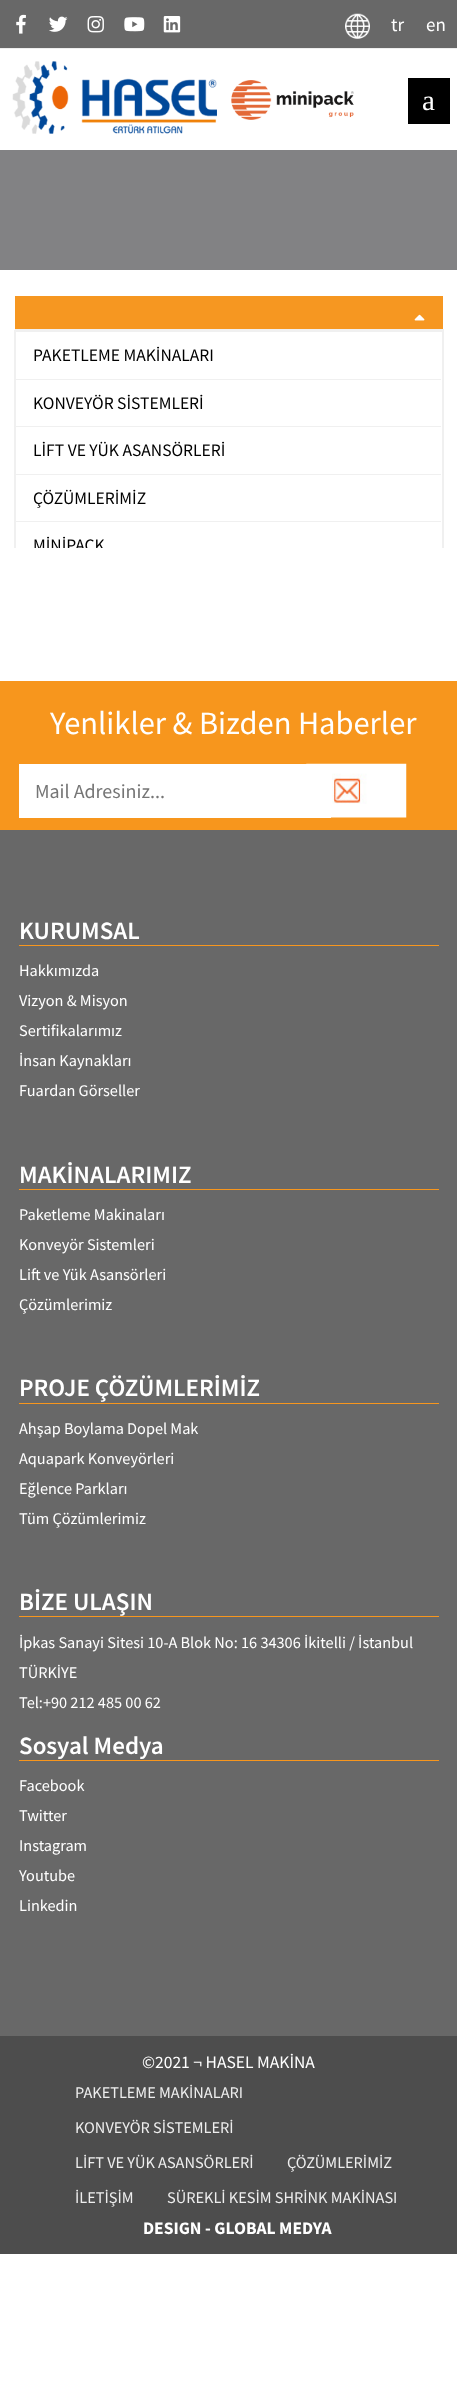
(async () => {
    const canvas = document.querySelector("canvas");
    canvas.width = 457;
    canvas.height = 2385;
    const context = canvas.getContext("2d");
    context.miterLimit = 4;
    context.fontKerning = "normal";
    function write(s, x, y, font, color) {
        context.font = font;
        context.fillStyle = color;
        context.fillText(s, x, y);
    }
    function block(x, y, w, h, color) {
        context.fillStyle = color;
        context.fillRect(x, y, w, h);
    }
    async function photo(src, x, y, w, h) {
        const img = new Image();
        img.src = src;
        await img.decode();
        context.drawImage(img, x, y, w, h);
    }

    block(0, 0, 457, 2385, "rgb(255, 255, 255)");
    block(0, 48, 457, 1, "rgb(238, 238, 238)");
    block(0, 0, 457, 48, "rgb(104, 104, 104)");
    await photo("media/1.png", 16, 14, 10, 20);
    await photo("media/2.png", 49, 16, 19, 16);
    await photo("media/3.png", 87, 16, 17, 17);
    await photo("media/4.png", 124, 17, 21, 15);
    await photo("media/5.png", 163, 16, 18, 17);
    await photo("media/6.png", 345, 13, 25, 26);
    write("tr", 391, 31, "19px Source Sans Pro", "rgb(255, 255, 255)");
    write("en", 426, 31, "19px Source Sans Pro", "rgb(255, 255, 255)");
    await photo("media/7.png", 12, 61, 205, 73);
    await photo("media/8.png", 231, 80, 123, 40);
    block(408, 78, 42, 46, "rgb(0, 0, 0)");
    write("a", 422, 110, "29px Liberation Serif", "rgb(255, 255, 255)");
    block(0, 150, 457, 120, "rgb(130, 130, 132)");
    block(15, 296, 428, 33, "rgb(246, 151, 33)");
    block(14, 329, 430, 1, "rgb(240, 240, 240)");
    block(14, 329, 1, 1, "rgb(255, 255, 255)");
    await photo("media/9.png", 414, 314, 11, 7);
    context.save();
    context.beginPath();
    context.rect(14, 295, 430, 253);
    context.clip();
    context.strokeStyle = "rgb(240, 240, 240)";
    context.strokeRect(14.5, 330.5, 429, 289);
    context.strokeRect(15.5, 331.5, 427, 287);
    context.restore();
    block(16, 379, 425, 1, "rgb(240, 240, 240)");
    write("PAKETLEME MAKİNALARI", 33, 361, "17.5px Source Sans Pro", "rgb(0, 0, 0)");
    block(16, 426, 425, 1, "rgb(240, 240, 240)");
    write("KONVEYÖR SİSTEMLERİ", 33, 409, "17.5px Source Sans Pro", "rgb(0, 0, 0)");
    block(16, 474, 425, 1, "rgb(240, 240, 240)");
    write("LİFT VE YÜK ASANSÖRLERİ", 33, 456, "17.5px Source Sans Pro", "rgb(0, 0, 0)");
    block(16, 521, 425, 1, "rgb(240, 240, 240)");
    write("ÇÖZÜMLERİMİZ", 33, 504, "17.5px Source Sans Pro", "rgb(0, 0, 0)");
    context.save();
    context.beginPath();
    context.rect(14, 295, 430, 253);
    context.clip();
    write("MİNİPACK", 33, 551, "17.5px Source Sans Pro", "rgb(0, 0, 0)");
    context.restore();
    block(0, 681, 457, 149, "rgb(247, 150, 29)");
    write("Yenlikler & Bizden Haberler", 50, 734, "32.5px Source Sans Pro", "rgb(255, 255, 255)");
    block(19, 764, 312, 54, "rgb(255, 255, 255)");
    write("Mail Adresiniz...", 35, 798, "20px Source Sans Pro", "rgb(117, 117, 117)");
    await photo("media/10.png", 306, 763, 101, 55);
    block(0, 830, 457, 1206, "rgb(104, 104, 104)");
    block(19, 945, 420, 1, "rgb(247, 150, 29)");
    write("KURUMSAL", 19, 939, "600 25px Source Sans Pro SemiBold", "rgb(255, 255, 255)");
    write("Hakkımızda", 19, 976, "16.25px Source Sans Pro", "rgb(255, 255, 255)");
    write("Vizyon & Misyon", 19, 1006, "16.25px Source Sans Pro", "rgb(255, 255, 255)");
    write("Sertifikalarımız", 19, 1036, "16.25px Source Sans Pro", "rgb(255, 255, 255)");
    write("İnsan Kaynakları", 19, 1066, "16.25px Source Sans Pro", "rgb(255, 255, 255)");
    write("Fuardan Görseller", 19, 1096, "16.25px Source Sans Pro", "rgb(255, 255, 255)");
    block(19, 1189, 420, 1, "rgb(247, 150, 29)");
    write("MAKİNALARIMIZ", 19, 1183, "600 25px Source Sans Pro SemiBold", "rgb(255, 255, 255)");
    write("Paketleme Makinaları", 19, 1220, "16.25px Source Sans Pro", "rgb(255, 255, 255)");
    write("Konveyör Sistemleri", 19, 1250, "16.25px Source Sans Pro", "rgb(255, 255, 255)");
    write("Lift ve Yük Asansörleri", 19, 1280, "16.25px Source Sans Pro", "rgb(255, 255, 255)");
    write("Çözümlerimiz", 19, 1310, "16.25px Source Sans Pro", "rgb(255, 255, 255)");
    block(19, 1403, 420, 1, "rgb(247, 150, 29)");
    write("PROJE ÇÖZÜMLERİMİZ", 19, 1396, "600 25px Source Sans Pro SemiBold", "rgb(255, 255, 255)");
    write("Ahşap Boylama Dopel Mak", 19, 1434, "16.25px Source Sans Pro", "rgb(255, 255, 255)");
    write("Aquapark Konveyörleri", 19, 1464, "16.25px Source Sans Pro", "rgb(255, 255, 255)");
    write("Eğlence Parkları", 19, 1494, "16.25px Source Sans Pro", "rgb(255, 255, 255)");
    write("Tüm Çözümlerimiz", 19, 1524, "16.25px Source Sans Pro", "rgb(255, 255, 255)");
    block(19, 1616, 420, 1, "rgb(247, 150, 29)");
    write("BİZE ULAŞIN", 19, 1610, "600 25px Source Sans Pro SemiBold", "rgb(255, 255, 255)");
    write("İpkas Sanayi Sitesi 10-A Blok No: 16 34306 İkitelli / İstanbul", 19, 1648, "16.25px Source Sans Pro", "rgb(255, 255, 255)");
    write("TÜRKİYE", 19, 1678, "16.25px Source Sans Pro", "rgb(255, 255, 255)");
    write("Tel:+90 212 485 00 62", 19, 1708, "16.25px Source Sans Pro", "rgb(255, 255, 255)");
    block(19, 1760, 420, 1, "rgb(247, 150, 29)");
    write("Sosyal Medya", 19, 1754, "600 25px Source Sans Pro SemiBold", "rgb(255, 255, 255)");
    write("Facebook", 19, 1791, "16.25px Source Sans Pro", "rgb(255, 255, 255)");
    write("Twitter", 19, 1821, "16.25px Source Sans Pro", "rgb(255, 255, 255)");
    write("Instagram", 19, 1851, "16.25px Source Sans Pro", "rgb(255, 255, 255)");
    write("Youtube", 19, 1881, "16.25px Source Sans Pro", "rgb(255, 255, 255)");
    write("Linkedin", 19, 1911, "16.25px Source Sans Pro", "rgb(255, 255, 255)");
    block(0, 2036, 457, 218, "rgb(77, 77, 77)");
    write("©2021 ¬ HASEL MAKİNA", 142, 2068, "17.5px Source Sans Pro", "rgb(255, 255, 255)");
    write("PAKETLEME MAKİNALARI", 75, 2098, "16.25px Source Sans Pro", "rgb(238, 238, 238)");
    write("KONVEYÖR SİSTEMLERİ", 75, 2133, "16.25px Source Sans Pro", "rgb(238, 238, 238)");
    write("LİFT VE YÜK ASANSÖRLERİ", 75, 2168, "16.25px Source Sans Pro", "rgb(238, 238, 238)");
    write("ÇÖZÜMLERİMİZ", 287, 2168, "16.25px Source Sans Pro", "rgb(238, 238, 238)");
    write("İLETİŞİM", 75, 2203, "16.25px Source Sans Pro", "rgb(238, 238, 238)");
    write("SÜREKLİ KESİM SHRİNK MAKİNASI", 167, 2203, "16.25px Source Sans Pro", "rgb(238, 238, 238)");
    write("DESIGN - GLOBAL MEDYA", 143, 2234, "bold 17.5px Source Sans Pro", "rgb(255, 255, 255)");
})();
